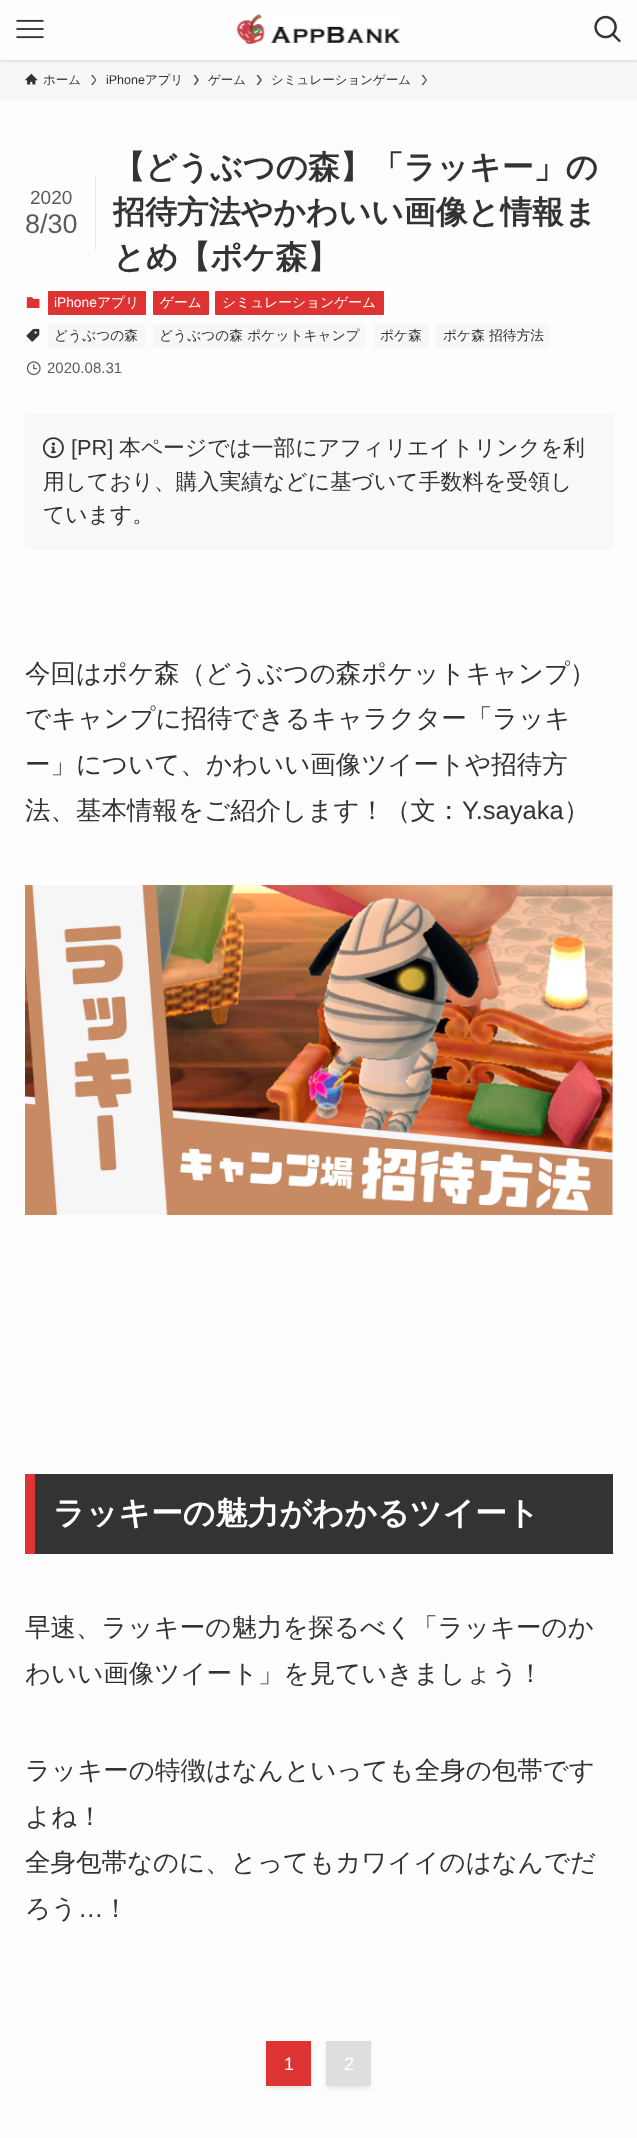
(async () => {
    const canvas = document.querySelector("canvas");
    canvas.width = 637;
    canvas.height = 2138;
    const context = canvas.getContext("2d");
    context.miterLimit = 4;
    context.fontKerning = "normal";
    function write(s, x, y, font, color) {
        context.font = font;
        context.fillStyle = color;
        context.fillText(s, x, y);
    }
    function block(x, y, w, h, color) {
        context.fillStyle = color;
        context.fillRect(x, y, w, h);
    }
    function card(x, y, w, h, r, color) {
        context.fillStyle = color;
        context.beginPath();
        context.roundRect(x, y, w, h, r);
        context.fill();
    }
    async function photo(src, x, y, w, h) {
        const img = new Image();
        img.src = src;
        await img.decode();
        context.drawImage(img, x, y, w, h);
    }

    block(0, 0, 637, 2138, "rgb(253, 253, 253)");
    block(0, 60, 637, 40, "rgb(247, 247, 247)");
    context.save();
    context.beginPath();
    context.rect(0, 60, 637, 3);
    context.clip();
    context.fillStyle = "rgba(0, 0, 0, 0.12)";
    context.filter = "blur(2.5px)";
    context.beginPath();
    context.rect(0, 1, 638, 60);
    context.fill();
    context.filter = "none";
    context.restore();
    await photo("media/1.png", 16, 19, 28, 20);
    await photo("media/2.png", 236, 14, 165, 30);
    await photo("media/3.png", 594, 15, 27, 28);
    await photo("media/4.png", 25, 73, 13, 12);
    write("ホーム", 43, 84, "500 12.5px WenQuanYi Zen Hei", "rgb(51, 51, 51)");
    context.fillStyle = "rgb(90, 90, 90)";
    context.beginPath();
    context.moveTo(93, 75);
    context.lineTo(91, 75);
    context.lineTo(95, 80);
    context.lineTo(91, 85);
    context.lineTo(93, 85);
    context.lineTo(96.5, 80);
    context.closePath();
    context.fill();
    write("iPhone", 106, 84, "12.5px Liberation Sans", "rgb(51, 51, 51)");
    write("アプリ", 145, 84, "500 12.5px WenQuanYi Zen Hei", "rgb(51, 51, 51)");
    context.fillStyle = "rgb(90, 90, 90)";
    context.beginPath();
    context.moveTo(195.5, 75);
    context.lineTo(193.5, 75);
    context.lineTo(197, 80);
    context.lineTo(193.5, 85);
    context.lineTo(195.5, 85);
    context.lineTo(199, 80);
    context.closePath();
    context.fill();
    write("ゲーム", 208, 84, "500 12.5px WenQuanYi Zen Hei", "rgb(51, 51, 51)");
    context.fillStyle = "rgb(90, 90, 90)";
    context.beginPath();
    context.moveTo(258.5, 75);
    context.lineTo(256.5, 75);
    context.lineTo(260, 80);
    context.lineTo(256.5, 85);
    context.lineTo(258.5, 85);
    context.lineTo(262, 80);
    context.closePath();
    context.fill();
    write("シミュレーションゲーム", 271, 84, "500 12.5px WenQuanYi Zen Hei", "rgb(51, 51, 51)");
    context.fillStyle = "rgb(90, 90, 90)";
    context.beginPath();
    context.moveTo(423.5, 75);
    context.lineTo(421.5, 75);
    context.lineTo(425.5, 80);
    context.lineTo(421.5, 85);
    context.lineTo(423.5, 85);
    context.lineTo(427, 80);
    context.closePath();
    context.fill();
    block(95, 176, 1, 74, "rgb(232, 232, 232)");
    write("2020", 30, 204, "19px Liberation Sans", "rgb(91, 91, 91)");
    write("8/30", 25, 233, "27px Liberation Sans", "rgb(91, 91, 91)");
    write("【どうぶつの森】「ラッキー」の", 113, 178, "bold 31.9px WenQuanYi Zen Hei", "rgb(51, 51, 51)");
    write("招待方法やかわいい画像と情報ま", 113, 223, "bold 31.9px WenQuanYi Zen Hei", "rgb(51, 51, 51)");
    write("とめ【ポケ森】", 113, 268, "bold 31.9px WenQuanYi Zen Hei", "rgb(51, 51, 51)");
    await photo("media/5.png", 26, 297, 14, 11);
    card(48, 291, 98, 24, 1, "rgb(221, 51, 51)");
    write("iPhone", 54, 307, "13.75px Liberation Sans", "rgb(255, 255, 255)");
    write("アプリ", 97, 307, "500 13.75px WenQuanYi Zen Hei", "rgb(255, 255, 255)");
    card(153, 291, 56, 24, 1, "rgb(221, 51, 51)");
    write("ゲーム", 160, 307, "500 13.75px WenQuanYi Zen Hei", "rgb(255, 255, 255)");
    card(215, 291, 169, 24, 1, "rgb(221, 51, 51)");
    write("シミュレーションゲーム", 222, 307, "500 13.75px WenQuanYi Zen Hei", "rgb(255, 255, 255)");
    await photo("media/6.png", 26, 328, 14, 14);
    card(48, 324, 97, 24, 1, "rgb(247, 247, 247)");
    write("どうぶつの森", 54, 340, "500 13.75px WenQuanYi Zen Hei", "rgb(51, 51, 51)");
    card(153, 324, 213, 24, 1, "rgb(247, 247, 247)");
    write("どうぶつの森 ポケットキャンプ", 159, 340, "500 13.75px WenQuanYi Zen Hei", "rgb(51, 51, 51)");
    card(374, 324, 55, 24, 1, "rgb(247, 247, 247)");
    write("ポケ森", 380, 340, "500 13.75px WenQuanYi Zen Hei", "rgb(51, 51, 51)");
    card(436, 324, 114, 24, 1, "rgb(247, 247, 247)");
    write("ポケ森 招待方法", 443, 340, "500 13.75px WenQuanYi Zen Hei", "rgb(51, 51, 51)");
    await photo("media/7.png", 26, 361, 15, 15);
    write("2020.08.31", 47, 373, "15px Liberation Sans", "rgb(91, 91, 91)");
    block(26, 415, 585, 133, "rgb(249, 249, 249)");
    context.beginPath();
    context.roundRect(25.5, 414.5, 587, 134, 0.5);
    context.strokeStyle = "rgb(245, 245, 245)";
    context.stroke();
    await photo("media/8.png", 42, 437, 22, 22);
    write("[PR]", 71, 455, "21.8px Liberation Sans", "rgb(51, 51, 51)");
    write("本ページでは一部にアフィリエイトリンクを利", 119, 455, "500 21.8px WenQuanYi Zen Hei", "rgb(51, 51, 51)");
    write("用しており、購入実績などに基づいて手数料を受領し", 43, 489, "500 21.8px WenQuanYi Zen Hei", "rgb(51, 51, 51)");
    write("ています。", 43, 522, "500 21.8px WenQuanYi Zen Hei", "rgb(51, 51, 51)");
    write("今回はポケ森（どうぶつの森ポケットキャンプ）", 25, 682, "500 25.5px WenQuanYi Zen Hei", "rgb(51, 51, 51)");
    write("でキャンプに招待できるキャラクター「ラッキ", 25, 727, "500 25.5px WenQuanYi Zen Hei", "rgb(51, 51, 51)");
    write("ー」について、かわいい画像ツイートや招待方", 25, 773, "500 25.5px WenQuanYi Zen Hei", "rgb(51, 51, 51)");
    write("法、基本情報をご紹介します！（文：", 25, 819, "500 25.5px WenQuanYi Zen Hei", "rgb(51, 51, 51)");
    write("Y.sayaka", 462, 819, "25.5px Liberation Sans", "rgb(51, 51, 51)");
    write("）", 564, 819, "500 25.5px WenQuanYi Zen Hei", "rgb(51, 51, 51)");
    await photo("media/9.png", 25, 885, 588, 330);
    block(35, 1474, 578, 80, "rgb(51, 51, 51)");
    block(25, 1474, 10, 80, "rgb(221, 51, 51)");
    write("ラッキーの魅力がわかるツイート", 53, 1524, "bold 31.9px WenQuanYi Zen Hei", "rgb(255, 255, 255)");
    write("早速、ラッキーの魅力を探るべく「ラッキーのか", 25, 1636, "500 25.5px WenQuanYi Zen Hei", "rgb(51, 51, 51)");
    write("わいい画像ツイート」を見ていきましょう！", 25, 1682, "500 25.5px WenQuanYi Zen Hei", "rgb(51, 51, 51)");
    write("ラッキーの特徴はなんといっても全身の包帯です", 25, 1779, "500 25.5px WenQuanYi Zen Hei", "rgb(51, 51, 51)");
    write("よね！", 25, 1825, "500 25.5px WenQuanYi Zen Hei", "rgb(51, 51, 51)");
    write("全身包帯なのに、とってもカワイイのはなんでだ", 25, 1871, "500 25.5px WenQuanYi Zen Hei", "rgb(51, 51, 51)");
    write("ろう", 25, 1917, "500 25.5px WenQuanYi Zen Hei", "rgb(51, 51, 51)");
    write("…", 78, 1917, "25.5px Liberation Sans", "rgb(51, 51, 51)");
    write("！", 103, 1917, "500 25.5px WenQuanYi Zen Hei", "rgb(51, 51, 51)");
    context.fillStyle = "rgba(0, 0, 0, 0.1)";
    context.filter = "blur(2.5px)";
    context.beginPath();
    context.rect(271, 2051, 35, 35);
    context.fill();
    context.filter = "none";
    context.fillStyle = "rgba(0, 0, 0, 0.05)";
    context.filter = "blur(2.5px)";
    context.beginPath();
    context.rect(266, 2044, 45, 45);
    context.fill();
    context.filter = "none";
    block(266, 2041, 45, 45, "rgb(221, 51, 51)");
    write("1", 284, 2070, "18px Liberation Sans", "rgb(255, 255, 255)");
    context.fillStyle = "rgba(0, 0, 0, 0.1)";
    context.filter = "blur(2.5px)";
    context.beginPath();
    context.rect(331, 2051, 35, 35);
    context.fill();
    context.filter = "none";
    context.fillStyle = "rgba(0, 0, 0, 0.05)";
    context.filter = "blur(2.5px)";
    context.beginPath();
    context.rect(326, 2044, 45, 45);
    context.fill();
    context.filter = "none";
    block(326, 2041, 45, 45, "rgb(222, 222, 222)");
    write("2", 344, 2070, "18px Liberation Sans", "rgb(255, 255, 255)");
})();
